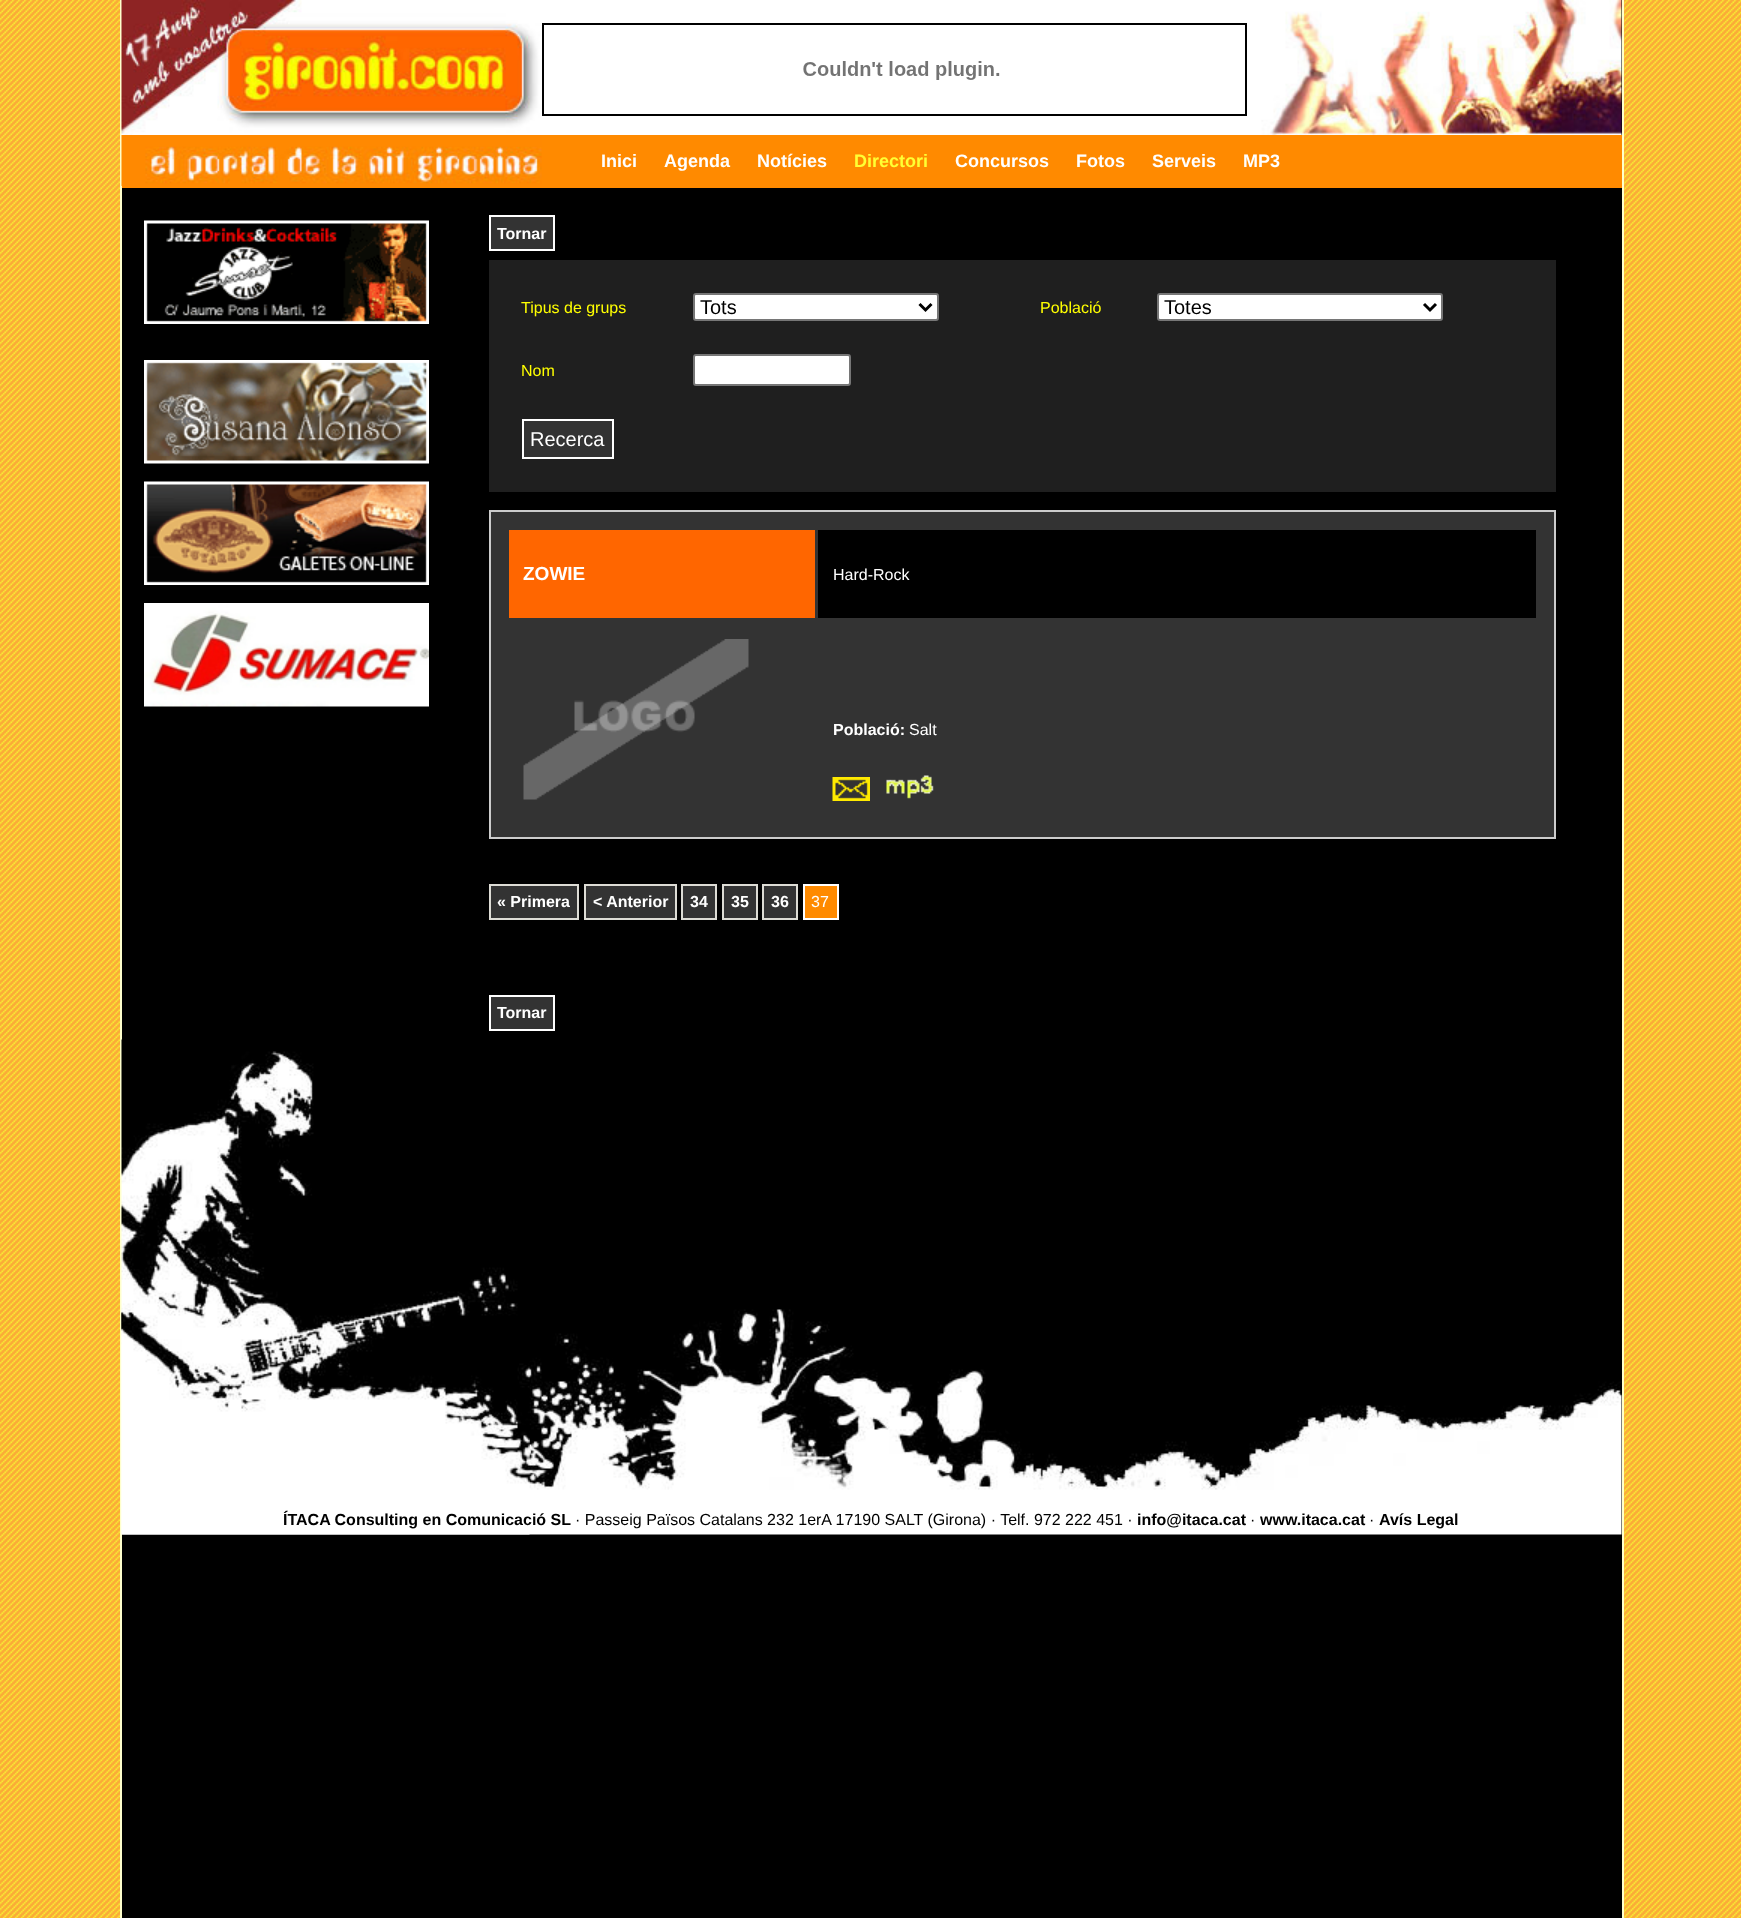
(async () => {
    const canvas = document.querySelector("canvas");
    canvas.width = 1741;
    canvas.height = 1918;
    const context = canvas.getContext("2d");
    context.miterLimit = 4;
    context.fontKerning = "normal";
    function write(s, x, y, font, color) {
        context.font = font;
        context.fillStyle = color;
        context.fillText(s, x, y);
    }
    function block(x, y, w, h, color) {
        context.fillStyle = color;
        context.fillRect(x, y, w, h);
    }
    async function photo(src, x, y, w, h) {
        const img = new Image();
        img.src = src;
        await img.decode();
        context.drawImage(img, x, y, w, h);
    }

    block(0, 0, 1741, 1918, "rgb(255, 255, 255)");
    await photo("media/1.png", 0, 0, 1741, 1918);
    block(122, 0, 1500, 1918, "rgb(0, 0, 0)");
    block(1622, 0, 2, 1918, "rgb(255, 255, 204)");
    block(120, 0, 2, 1918, "rgb(255, 255, 204)");
    await photo("media/2.png", 121, 0, 1501, 135);
    context.strokeStyle = "rgb(0, 0, 0)";
    context.lineWidth = 2;
    context.strokeRect(543, 24, 703, 91);
    await photo("media/3.png", 803, 61, 197, 19);
    block(122, 135, 1500, 53, "rgb(255, 138, 0)");
    await photo("media/4.png", 121, 135, 421, 51);
    write("Inici", 601, 167, "bold 18px Liberation Sans", "rgb(255, 255, 255)");
    write("Agenda", 664, 167, "bold 18px Liberation Sans", "rgb(255, 255, 255)");
    write("Notícies", 757, 167, "bold 18px Liberation Sans", "rgb(255, 255, 255)");
    write("Directori", 854, 167, "bold 18px Liberation Sans", "rgb(255, 255, 51)");
    write("Concursos", 955, 167, "bold 18px Liberation Sans", "rgb(255, 255, 255)");
    write("Fotos", 1076, 167, "bold 18px Liberation Sans", "rgb(255, 255, 255)");
    write("Serveis", 1152, 167, "bold 18px Liberation Sans", "rgb(255, 255, 255)");
    write("MP3", 1243, 167, "bold 18px Liberation Sans", "rgb(255, 255, 255)");
    await photo("media/5.png", 144, 220, 285, 104);
    await photo("media/6.png", 144, 360, 285, 104);
    await photo("media/7.png", 144, 481, 285, 104);
    await photo("media/8.png", 144, 603, 285, 104);
    context.fillStyle = "rgb(51, 51, 51)";
    context.beginPath();
    context.rect(490, 216, 64, 34);
    context.fill();
    context.strokeStyle = "rgb(255, 255, 255)";
    context.stroke();
    write("Tornar", 497, 239, "bold 16px Liberation Sans", "rgb(255, 255, 255)");
    block(489, 260, 1067, 232, "rgb(31, 31, 31)");
    write("Tipus de grups", 521, 313, "16px Liberation Sans", "rgb(255, 255, 0)");
    context.fillStyle = "rgb(255, 255, 255)";
    context.beginPath();
    context.roundRect(694, 294, 244, 26, 2);
    context.fill();
    context.strokeStyle = "rgb(118, 118, 118)";
    context.stroke();
    context.beginPath();
    context.moveTo(919.5, 304);
    context.lineTo(925.5, 310);
    context.lineTo(931.5, 304);
    context.strokeStyle = "rgb(0, 0, 0)";
    context.lineWidth = 3;
    context.stroke();
    write("Tots", 700, 314, "20px Liberation Sans", "rgb(0, 0, 0)");
    write("Població", 1040, 313, "16px Liberation Sans", "rgb(255, 255, 0)");
    context.fillStyle = "rgb(255, 255, 255)";
    context.beginPath();
    context.roundRect(1158, 294, 284, 26, 2);
    context.fill();
    context.strokeStyle = "rgb(118, 118, 118)";
    context.lineWidth = 2;
    context.stroke();
    context.beginPath();
    context.moveTo(1424, 304);
    context.lineTo(1430, 310);
    context.lineTo(1436, 304);
    context.strokeStyle = "rgb(0, 0, 0)";
    context.lineWidth = 3;
    context.stroke();
    write("Totes", 1164, 314, "20px Liberation Sans", "rgb(0, 0, 0)");
    write("Nom", 521, 376, "16px Liberation Sans", "rgb(255, 255, 0)");
    context.fillStyle = "rgb(255, 255, 255)";
    context.beginPath();
    context.roundRect(694, 355, 156, 30, 2);
    context.fill();
    context.strokeStyle = "rgb(118, 118, 118)";
    context.lineWidth = 2;
    context.stroke();
    context.fillStyle = "rgb(51, 51, 51)";
    context.beginPath();
    context.rect(523, 420, 90, 38);
    context.fill();
    context.strokeStyle = "rgb(255, 255, 255)";
    context.stroke();
    write("Recerca", 530, 446, "20px Liberation Sans", "rgb(255, 255, 255)");
    context.fillStyle = "rgb(51, 51, 51)";
    context.beginPath();
    context.rect(490, 511, 1065, 327);
    context.fill();
    context.strokeStyle = "rgb(204, 204, 204)";
    context.stroke();
    block(509, 530, 306, 88, "rgb(255, 102, 0)");
    write("ZOWIE", 523, 580, "bold 19px Liberation Sans", "rgb(255, 255, 255)");
    block(818, 530, 718, 88, "rgb(0, 0, 0)");
    write("Hard-Rock", 833, 580, "16px Liberation Sans", "rgb(255, 255, 255)");
    await photo("media/9.png", 523, 639, 226, 161);
    write("Població:", 833, 735, "bold 16px Liberation Sans", "rgb(255, 255, 255)");
    write("Salt", 909, 735, "16px Liberation Sans", "rgb(255, 255, 255)");
    await photo("media/10.png", 832, 777, 38, 24);
    await photo("media/11.png", 886, 775, 48, 24);
    context.fillStyle = "rgb(51, 51, 51)";
    context.beginPath();
    context.rect(490, 885, 88, 34);
    context.fill();
    context.strokeStyle = "rgb(221, 220, 213)";
    context.stroke();
    write("« Primera", 497, 907, "bold 16px Liberation Sans", "rgb(255, 255, 255)");
    context.fillStyle = "rgb(51, 51, 51)";
    context.beginPath();
    context.rect(585, 885, 91, 34);
    context.fill();
    context.stroke();
    write("< Anterior", 593, 907, "bold 16px Liberation Sans", "rgb(255, 255, 255)");
    context.fillStyle = "rgb(51, 51, 51)";
    context.beginPath();
    context.rect(682, 885, 34, 34);
    context.fill();
    context.stroke();
    write("34", 690, 907, "bold 16px Liberation Sans", "rgb(255, 255, 255)");
    context.fillStyle = "rgb(51, 51, 51)";
    context.beginPath();
    context.rect(723, 885, 34, 34);
    context.fill();
    context.stroke();
    write("35", 731, 907, "bold 16px Liberation Sans", "rgb(255, 255, 255)");
    context.fillStyle = "rgb(51, 51, 51)";
    context.beginPath();
    context.rect(763, 885, 34, 34);
    context.fill();
    context.stroke();
    write("36", 771, 907, "bold 16px Liberation Sans", "rgb(255, 255, 255)");
    context.fillStyle = "rgb(255, 138, 0)";
    context.beginPath();
    context.rect(804, 885, 34, 34);
    context.fill();
    context.strokeStyle = "rgb(255, 255, 255)";
    context.stroke();
    write("37", 811, 907, "16px Liberation Sans", "rgb(255, 255, 255)");
    context.fillStyle = "rgb(51, 51, 51)";
    context.beginPath();
    context.rect(490, 996, 64, 34);
    context.fill();
    context.stroke();
    write("Tornar", 497, 1018, "bold 16px Liberation Sans", "rgb(255, 255, 255)");
    await photo("media/12.png", 121, 1309, 1501, 226);
    await photo("media/13.png", 121, 1039, 409, 496);
    write("ÍTACA Consulting en Comunicació SL", 283, 1525, "bold 16px Liberation Sans", "rgb(0, 0, 0)");
    write("· Passeig Països Catalans 232 1erA 17190 SALT (Girona) · Telf. 972 222 451 ·", 575, 1525, "16px Liberation Sans", "rgb(0, 0, 0)");
    write("info@itaca.cat", 1137, 1525, "bold 16px Liberation Sans", "rgb(0, 0, 0)");
    write("·", 1250, 1525, "16px Liberation Sans", "rgb(0, 0, 0)");
    write("www.itaca.cat", 1260, 1525, "bold 16px Liberation Sans", "rgb(0, 0, 0)");
    write("·", 1369, 1525, "16px Liberation Sans", "rgb(0, 0, 0)");
    write("Avís Legal", 1379, 1525, "bold 16px Liberation Sans", "rgb(0, 0, 0)");
})();
